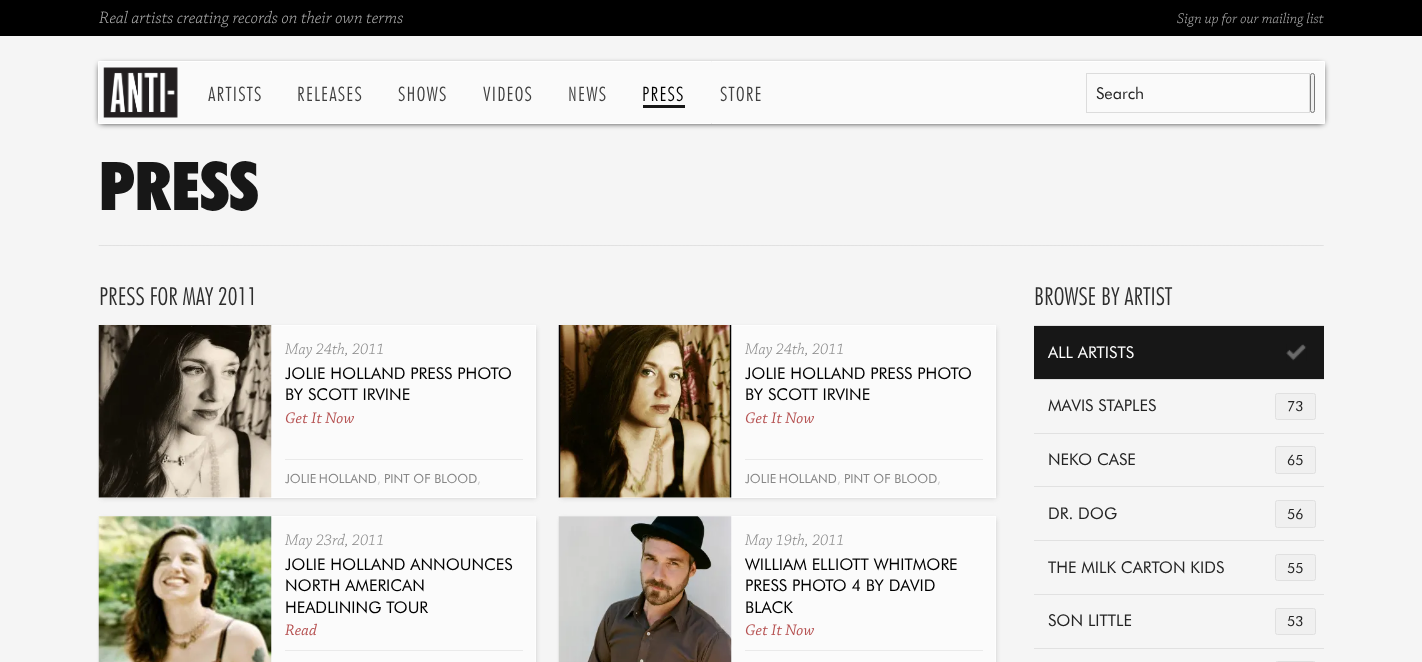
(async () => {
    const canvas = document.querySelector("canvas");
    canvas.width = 1422;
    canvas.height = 662;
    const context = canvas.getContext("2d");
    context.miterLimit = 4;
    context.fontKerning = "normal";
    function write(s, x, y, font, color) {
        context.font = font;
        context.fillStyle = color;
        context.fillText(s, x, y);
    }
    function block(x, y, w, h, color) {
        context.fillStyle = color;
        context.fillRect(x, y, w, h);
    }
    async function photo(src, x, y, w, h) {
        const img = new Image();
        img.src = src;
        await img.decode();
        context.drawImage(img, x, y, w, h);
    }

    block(0, 0, 1422, 662, "rgb(245, 245, 245)");
    block(0, 0, 1422, 36, "rgb(0, 0, 0)");
    write("Real artists creating records on their own terms", 99, 23, "italic 300 17.5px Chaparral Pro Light", "rgb(173, 173, 173)");
    write("Sign up for our mailing list", 1177, 23, "italic 300 15px Chaparral Pro Light", "rgb(173, 173, 173)");
    await photo("media/1.png", 98, 245, 1226, 1);
    write("PRESS", 99, 210, "800 67.5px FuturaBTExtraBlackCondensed", "rgb(23, 23, 23)");
    write("PRESS FOR MAY 2011", 99, 305, "300 25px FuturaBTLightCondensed", "rgb(45, 45, 45)");
    context.fillStyle = "rgb(204, 204, 204)";
    context.filter = "blur(2.5px)";
    context.beginPath();
    context.rect(101, 328, 435, 170);
    context.fill();
    context.filter = "none";
    block(271, 326, 264, 171, "rgb(251, 251, 251)");
    context.strokeStyle = "rgb(254, 254, 254)";
    context.strokeRect(99.5, 325.5, 436, 172);
    await photo("media/2.png", 98, 325, 174, 173);
    write("May 24th, 2011", 285, 354, "italic 300 16.25px Chaparral Pro Light", "rgb(134, 134, 134)");
    write("JOLIE HOLLAND PRESS PHOTO", 285, 379, "16.25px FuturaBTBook", "rgb(0, 0, 0)");
    write("BY SCOTT IRVINE", 285, 400, "16.25px FuturaBTBook", "rgb(0, 0, 0)");
    write("Get It Now", 285, 423, "italic 16.25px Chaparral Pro", "rgb(182, 82, 82)");
    block(285, 459, 238, 1, "rgb(234, 234, 234)");
    context.wordSpacing = "-1px";
    write("JOLIE HOLLAND", 285, 483, "12.5px FuturaBTBook", "rgb(134, 134, 134)");
    context.wordSpacing = "0px";
    write(",", 377, 483, "12.5px FuturaBTBook", "rgb(204, 204, 204)");
    write("PINT OF BLOOD", 384, 483, "12.5px FuturaBTBook", "rgb(134, 134, 134)");
    write(",", 477, 483, "12.5px FuturaBTBook", "rgb(204, 204, 204)");
    context.filter = "blur(2.5px)";
    context.beginPath();
    context.rect(561, 328, 435, 170);
    context.fill();
    context.filter = "none";
    block(731, 326, 264, 171, "rgb(251, 251, 251)");
    context.strokeRect(559.5, 325.5, 436, 172);
    await photo("media/3.png", 558, 325, 174, 173);
    write("May 24th, 2011", 745, 354, "italic 300 16.25px Chaparral Pro Light", "rgb(134, 134, 134)");
    write("JOLIE HOLLAND PRESS PHOTO", 745, 379, "16.25px FuturaBTBook", "rgb(0, 0, 0)");
    write("BY SCOTT IRVINE", 745, 400, "16.25px FuturaBTBook", "rgb(0, 0, 0)");
    write("Get It Now", 745, 423, "italic 16.25px Chaparral Pro", "rgb(182, 82, 82)");
    block(745, 459, 238, 1, "rgb(234, 234, 234)");
    context.wordSpacing = "-1px";
    write("JOLIE HOLLAND", 745, 483, "12.5px FuturaBTBook", "rgb(134, 134, 134)");
    context.wordSpacing = "0px";
    write(",", 837, 483, "12.5px FuturaBTBook", "rgb(204, 204, 204)");
    write("PINT OF BLOOD", 844, 483, "12.5px FuturaBTBook", "rgb(134, 134, 134)");
    write(",", 937, 483, "12.5px FuturaBTBook", "rgb(204, 204, 204)");
    context.filter = "blur(2.5px)";
    context.beginPath();
    context.rect(101, 519, 435, 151);
    context.fill();
    context.filter = "none";
    block(271, 517, 264, 145, "rgb(251, 251, 251)");
    context.strokeRect(99.5, 516.5, 436, 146);
    await photo("media/4.png", 98, 516, 174, 146);
    write("May 23rd, 2011", 285, 545, "italic 300 16.25px Chaparral Pro Light", "rgb(134, 134, 134)");
    write("JOLIE HOLLAND ANNOUNCES", 285, 570, "16.25px FuturaBTBook", "rgb(0, 0, 0)");
    write("NORTH AMERICAN", 285, 591, "16.25px FuturaBTBook", "rgb(0, 0, 0)");
    write("HEADLINING TOUR", 285, 613, "16.25px FuturaBTBook", "rgb(0, 0, 0)");
    write("Read", 285, 635, "italic 16.25px Chaparral Pro", "rgb(182, 82, 82)");
    block(285, 650, 238, 1, "rgb(234, 234, 234)");
    context.fillStyle = "rgb(204, 204, 204)";
    context.filter = "blur(2.5px)";
    context.beginPath();
    context.rect(561, 519, 435, 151);
    context.fill();
    context.filter = "none";
    block(731, 517, 264, 145, "rgb(251, 251, 251)");
    context.strokeRect(559.5, 516.5, 436, 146);
    await photo("media/5.png", 558, 516, 174, 146);
    write("May 19th, 2011", 745, 545, "italic 300 16.25px Chaparral Pro Light", "rgb(134, 134, 134)");
    write("WILLIAM ELLIOTT WHITMORE", 745, 570, "16.25px FuturaBTBook", "rgb(0, 0, 0)");
    write("PRESS PHOTO 4 BY DAVID", 745, 591, "16.25px FuturaBTBook", "rgb(0, 0, 0)");
    write("BLACK", 745, 613, "16.25px FuturaBTBook", "rgb(0, 0, 0)");
    write("Get It Now", 745, 635, "italic 16.25px Chaparral Pro", "rgb(182, 82, 82)");
    block(745, 650, 238, 1, "rgb(234, 234, 234)");
    write("BROWSE BY ARTIST", 1034, 305, "300 25px FuturaBTLightCondensed", "rgb(45, 45, 45)");
    block(1034, 325, 290, 1, "rgb(225, 225, 225)");
    block(1034, 326, 290, 53, "rgb(23, 23, 23)");
    await photo("media/6.png", 1286, 344, 21, 17);
    block(1034, 379, 290, 1, "rgb(225, 225, 225)");
    write("ALL ARTISTS", 1048, 358, "16.25px FuturaBTBook", "rgb(255, 255, 255)");
    block(1034, 433, 290, 1, "rgb(225, 225, 225)");
    write("MAVIS STAPLES", 1048, 411, "16.25px FuturaBTBook", "rgb(36, 36, 36)");
    context.fillStyle = "rgb(240, 240, 240)";
    context.beginPath();
    context.roundRect(1275.5, 393.5, 40, 26, 2);
    context.fill();
    context.strokeStyle = "rgb(224, 224, 224)";
    context.stroke();
    write("73", 1287, 411, "14px FuturaBTBook", "rgb(36, 36, 36)");
    block(1034, 486, 290, 1, "rgb(225, 225, 225)");
    write("NEKO CASE", 1048, 465, "16.25px FuturaBTBook", "rgb(36, 36, 36)");
    context.fillStyle = "rgb(240, 240, 240)";
    context.beginPath();
    context.roundRect(1275.5, 446.5, 40, 27, 2);
    context.fill();
    context.stroke();
    write("65", 1287, 465, "14px FuturaBTBook", "rgb(36, 36, 36)");
    block(1034, 540, 290, 1, "rgb(225, 225, 225)");
    write("DR. DOG", 1048, 519, "16.25px FuturaBTBook", "rgb(36, 36, 36)");
    context.fillStyle = "rgb(240, 240, 240)";
    context.beginPath();
    context.roundRect(1275.5, 500.5, 40, 27, 2);
    context.fill();
    context.stroke();
    write("56", 1287, 519, "14px FuturaBTBook", "rgb(36, 36, 36)");
    block(1034, 594, 290, 1, "rgb(225, 225, 225)");
    write("THE MILK CARTON KIDS", 1048, 573, "16.25px FuturaBTBook", "rgb(36, 36, 36)");
    context.fillStyle = "rgb(240, 240, 240)";
    context.beginPath();
    context.roundRect(1275.5, 554.5, 40, 26, 2);
    context.fill();
    context.stroke();
    write("55", 1287, 573, "14px FuturaBTBook", "rgb(36, 36, 36)");
    block(1034, 648, 290, 1, "rgb(225, 225, 225)");
    write("SON LITTLE", 1048, 626, "16.25px FuturaBTBook", "rgb(36, 36, 36)");
    context.fillStyle = "rgb(240, 240, 240)";
    context.beginPath();
    context.roundRect(1275.5, 608.5, 40, 26, 2);
    context.fill();
    context.stroke();
    write("53", 1287, 626, "14px FuturaBTBook", "rgb(36, 36, 36)");
    context.beginPath();
    context.roundRect(1275.5, 661.5, 40, 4, 2);
    context.stroke();
    context.fillStyle = "rgb(0, 0, 0)";
    context.filter = "blur(3px)";
    context.beginPath();
    context.rect(100, 65, 1223, 58);
    context.fill();
    context.filter = "none";
    context.fillStyle = "rgb(250, 250, 250)";
    context.beginPath();
    context.rect(98.5, 61.5, 1226, 62);
    context.fill();
    context.strokeStyle = "rgb(255, 255, 255)";
    context.stroke();
    await photo("media/7.png", 103, 67, 75, 51);
    context.letterSpacing = "1.25px";
    write("ARTISTS", 208, 101, "300 20px FuturaBTLightCondensed", "rgb(64, 64, 64)");
    write("RELEASES", 297, 101, "300 20px FuturaBTLightCondensed", "rgb(64, 64, 64)");
    write("SHOWS", 398, 101, "300 20px FuturaBTLightCondensed", "rgb(64, 64, 64)");
    write("VIDEOS", 483, 101, "300 20px FuturaBTLightCondensed", "rgb(64, 64, 64)");
    write("NEWS", 568, 101, "300 20px FuturaBTLightCondensed", "rgb(64, 64, 64)");
    write("PRESS", 642, 101, "300 20px FuturaBTLightCondensed", "rgb(0, 0, 0)");
    block(643, 105, 42, 3, "rgb(23, 23, 23)");
    write("STORE", 720, 101, "300 20px FuturaBTLightCondensed", "rgb(64, 64, 64)");
    context.strokeStyle = "rgb(220, 220, 220)";
    context.strokeRect(1086.5, 73.5, 223, 39);
    context.letterSpacing = "0px";
    write("Search", 1096, 99, "16.25px FuturaBTBook", "rgb(36, 36, 36)");
    context.fillStyle = "rgb(239, 239, 239)";
    context.beginPath();
    context.roundRect(1310.5, 73.5, 4, 39, 2);
    context.fill();
    context.strokeStyle = "rgb(118, 118, 118)";
    context.stroke();
})();
